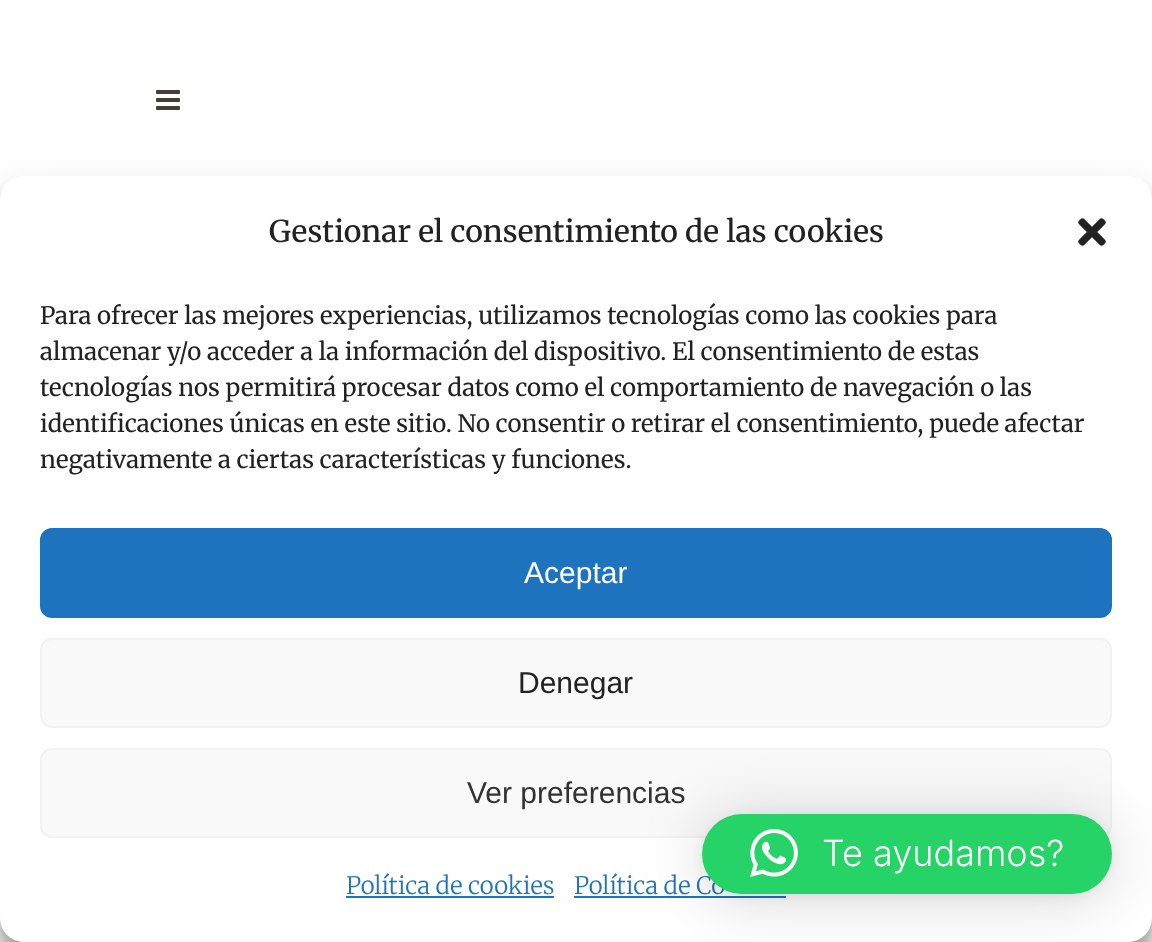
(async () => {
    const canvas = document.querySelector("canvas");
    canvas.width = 1152;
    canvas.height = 942;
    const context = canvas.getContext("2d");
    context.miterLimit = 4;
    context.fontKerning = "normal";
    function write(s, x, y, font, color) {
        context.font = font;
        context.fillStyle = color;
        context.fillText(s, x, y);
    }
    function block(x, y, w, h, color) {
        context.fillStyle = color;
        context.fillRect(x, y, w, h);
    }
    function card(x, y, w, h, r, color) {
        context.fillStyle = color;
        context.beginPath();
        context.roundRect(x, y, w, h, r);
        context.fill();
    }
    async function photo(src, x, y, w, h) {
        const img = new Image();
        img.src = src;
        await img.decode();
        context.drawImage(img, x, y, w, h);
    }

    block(0, 0, 1152, 942, "rgb(248, 245, 240)");
    block(0, 0, 1152, 200, "rgb(255, 255, 255)");
    await photo("media/1.png", 156, 90, 24, 20);
    context.fillStyle = "rgba(0, 0, 0, 0.23)";
    context.filter = "blur(6px)";
    context.beginPath();
    context.roundRect(0, 188, 1152, 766, 24);
    context.fill();
    context.filter = "none";
    context.fillStyle = "rgba(0, 0, 0, 0.19)";
    context.filter = "blur(20px)";
    context.beginPath();
    context.roundRect(0, 196, 1152, 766, 24);
    context.fill();
    context.filter = "none";
    card(0, 176, 1152, 766, 24, "rgb(255, 255, 255)");
    write("Gestionar el consentimiento de las cookies", 269, 242, "500 30px Merriweather", "rgb(34, 34, 34)");
    await photo("media/2.png", 1078, 218, 28, 28);
    write("Para ofrecer las mejores experiencias, utilizamos tecnologías como las cookies para", 40, 324, "24px Merriweather", "rgb(34, 34, 34)");
    write("almacenar y/o acceder a la información del dispositivo. El consentimiento de estas", 40, 360, "24px Merriweather", "rgb(34, 34, 34)");
    write("tecnologías nos permitirá procesar datos como el comportamiento de navegación o las", 40, 396, "24px Merriweather", "rgb(34, 34, 34)");
    write("identificaciones únicas en este sitio. No consentir o retirar el consentimiento, puede afectar", 40, 432, "24px Merriweather", "rgb(34, 34, 34)");
    write("negativamente a ciertas características y funciones.", 40, 468, "24px Merriweather", "rgb(34, 34, 34)");
    context.fillStyle = "rgb(30, 115, 190)";
    context.beginPath();
    context.roundRect(41, 529, 1070, 88, 11);
    context.fill();
    context.strokeStyle = "rgb(30, 115, 190)";
    context.lineWidth = 2;
    context.stroke();
    write("Aceptar", 524, 583, "30px Liberation Sans", "rgb(255, 255, 255)");
    context.fillStyle = "rgb(249, 249, 249)";
    context.beginPath();
    context.roundRect(41, 639, 1070, 88, 11);
    context.fill();
    context.strokeStyle = "rgb(242, 242, 242)";
    context.stroke();
    write("Denegar", 518, 693, "30px Liberation Sans", "rgb(34, 34, 34)");
    context.fillStyle = "rgb(249, 249, 249)";
    context.beginPath();
    context.roundRect(41, 749, 1070, 88, 11);
    context.fill();
    context.stroke();
    write("Ver preferencias", 467, 803, "30px Liberation Sans", "rgb(51, 51, 51)");
    write("Política de cookies", 346, 894, "300 24px Merriweather", "rgb(30, 115, 190)");
    block(346, 896, 208, 2, "rgb(30, 115, 190)");
    write("Política de Co", 574, 894, "300 24px Merriweather", "rgb(30, 115, 190)");
    block(574, 896, 212, 2, "rgb(30, 115, 190)");
    context.fillStyle = "rgba(0, 0, 0, 0.16)";
    context.filter = "blur(32px)";
    context.beginPath();
    context.roundRect(702, 818, 410, 80, 40);
    context.fill();
    context.filter = "none";
    context.fillStyle = "rgba(0, 0, 0, 0.06)";
    context.filter = "blur(6px)";
    context.beginPath();
    context.roundRect(702, 816, 410, 80, 40);
    context.fill();
    context.filter = "none";
    card(702, 814, 410, 80, 40, "rgb(37, 211, 102)");
    await photo("media/3.png", 750, 829, 48, 48);
    write("Te ayudamos?", 822, 866, "300 36px Inter", "rgb(255, 255, 255)");
})();
